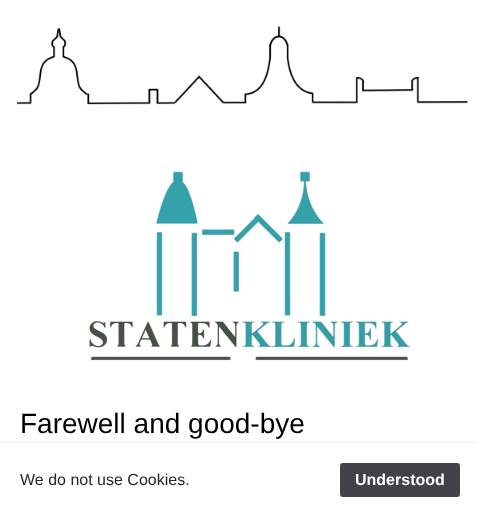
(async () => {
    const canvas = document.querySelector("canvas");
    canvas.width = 480;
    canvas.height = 517;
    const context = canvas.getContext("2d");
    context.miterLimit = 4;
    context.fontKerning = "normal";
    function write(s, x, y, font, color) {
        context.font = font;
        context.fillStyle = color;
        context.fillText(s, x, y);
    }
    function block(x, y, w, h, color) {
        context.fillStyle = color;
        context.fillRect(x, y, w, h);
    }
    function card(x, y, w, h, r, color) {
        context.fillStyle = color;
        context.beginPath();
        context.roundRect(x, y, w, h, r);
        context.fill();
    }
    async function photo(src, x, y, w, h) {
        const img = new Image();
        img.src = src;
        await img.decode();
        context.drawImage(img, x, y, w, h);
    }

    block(0, 0, 480, 517, "rgb(255, 255, 255)");
    await photo("media/1.png", 16, 26, 452, 79);
    await photo("media/2.png", 89, 171, 321, 190);
    write("Farewell and good-bye", 20, 433, "28px Liberation Sans", "rgb(0, 0, 0)");
    context.fillStyle = "rgba(0, 0, 0, 0.1)";
    context.filter = "blur(2px)";
    context.beginPath();
    context.rect(-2, 443, 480, 74);
    context.fill();
    context.filter = "none";
    block(0, 443, 480, 74, "rgb(255, 255, 255)");
    write("We do not use Cookies.", 20, 485, "16px Liberation Sans", "rgb(38, 38, 38)");
    card(340, 463, 120, 34, 3, "rgb(66, 65, 71)");
    write("Understood", 355, 485, "bold 16px Liberation Sans", "rgb(255, 255, 255)");
})();
